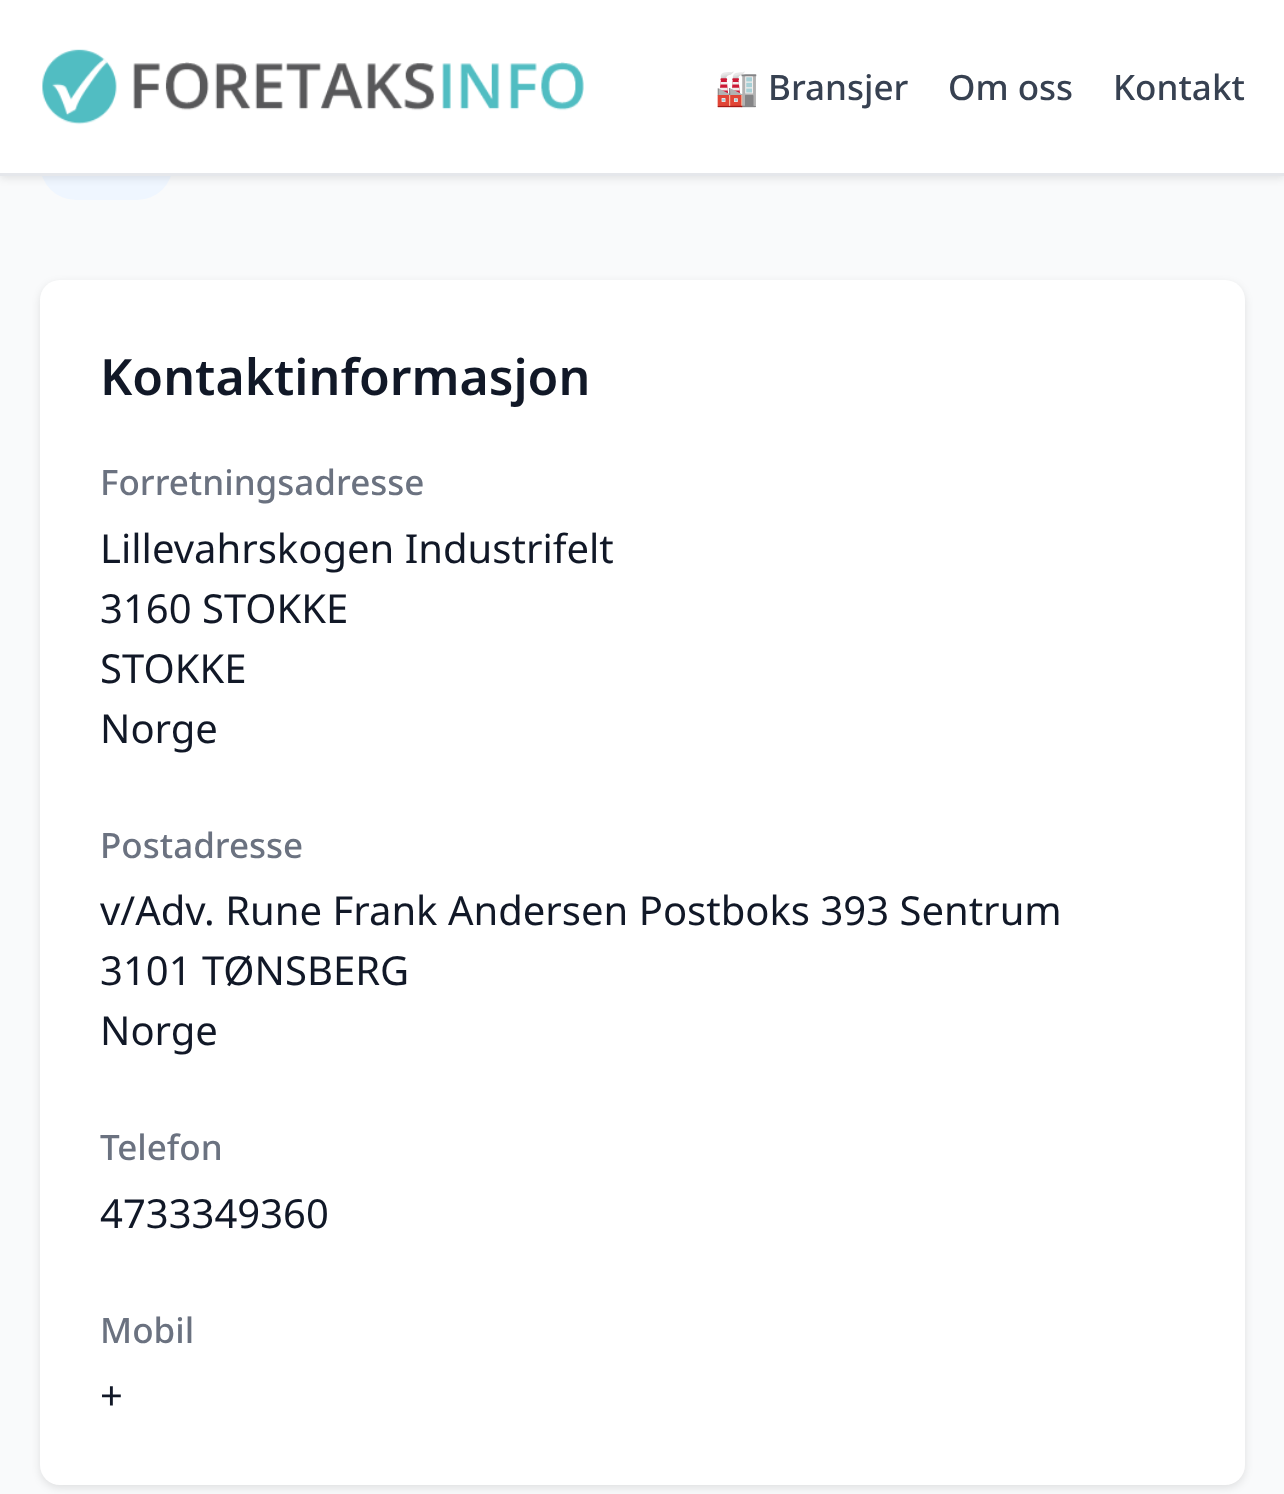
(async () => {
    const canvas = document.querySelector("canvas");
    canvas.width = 1284;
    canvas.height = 1494;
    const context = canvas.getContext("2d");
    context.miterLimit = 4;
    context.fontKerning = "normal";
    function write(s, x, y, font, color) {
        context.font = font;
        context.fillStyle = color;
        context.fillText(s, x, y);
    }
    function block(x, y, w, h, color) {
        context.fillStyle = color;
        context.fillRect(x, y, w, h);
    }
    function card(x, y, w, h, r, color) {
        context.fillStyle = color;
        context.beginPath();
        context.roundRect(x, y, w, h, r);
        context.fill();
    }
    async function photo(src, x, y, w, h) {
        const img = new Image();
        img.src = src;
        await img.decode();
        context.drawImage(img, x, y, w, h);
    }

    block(0, 0, 1284, 1494, "rgb(249, 250, 251)");
    card(40, 128, 133, 72, 36, "rgb(239, 246, 255)");
    context.fillStyle = "rgba(0, 0, 0, 0.1)";
    context.filter = "blur(4px)";
    context.beginPath();
    context.rect(0, 3, 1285, 175);
    context.fill();
    context.filter = "none";
    block(0, 0, 1284, 173, "rgb(255, 255, 255)");
    block(0, 173, 1284, 3, "rgb(229, 231, 235)");
    await photo("media/1.png", 42, 49, 542, 76);
    write("🏭", 715, 100, "35px Noto Color Emoji", "rgb(55, 65, 81)");
    write("Bransjer", 768, 100, "500 35px Noto Sans", "rgb(55, 65, 81)");
    write("Om oss", 948, 100, "500 35px Noto Sans", "rgb(55, 65, 81)");
    write("Kontakt", 1113, 100, "500 35px Noto Sans", "rgb(55, 65, 81)");
    context.fillStyle = "rgba(0, 0, 0, 0.1)";
    context.filter = "blur(4px)";
    context.beginPath();
    context.roundRect(40, 283, 1205, 1205, 20);
    context.fill();
    context.filter = "none";
    card(40, 280, 1205, 1205, 20, "rgb(255, 255, 255)");
    write("Kontaktinformasjon", 100, 395, "600 50px Noto Sans", "rgb(17, 24, 39)");
    write("Forretningsadresse", 100, 495, "500 35px Noto Sans", "rgb(107, 114, 128)");
    write("Lillevahrskogen Industrifelt", 100, 563, "40px Noto Sans", "rgb(17, 24, 39)");
    write("3160 STOKKE", 100, 623, "40px Noto Sans", "rgb(17, 24, 39)");
    write("STOKKE", 100, 683, "40px Noto Sans", "rgb(17, 24, 39)");
    write("Norge", 100, 743, "40px Noto Sans", "rgb(17, 24, 39)");
    write("Postadresse", 100, 858, "500 35px Noto Sans", "rgb(107, 114, 128)");
    write("v/Adv. Rune Frank Andersen Postboks 393 Sentrum", 100, 925, "40px Noto Sans", "rgb(17, 24, 39)");
    write("3101 TØNSBERG", 100, 985, "40px Noto Sans", "rgb(17, 24, 39)");
    write("Norge", 100, 1045, "40px Noto Sans", "rgb(17, 24, 39)");
    write("Telefon", 100, 1160, "500 35px Noto Sans", "rgb(107, 114, 128)");
    write("4733349360", 100, 1228, "40px Noto Sans", "rgb(17, 24, 39)");
    write("Mobil", 100, 1343, "500 35px Noto Sans", "rgb(107, 114, 128)");
    write("+", 100, 1410, "40px Noto Sans", "rgb(17, 24, 39)");
})();
